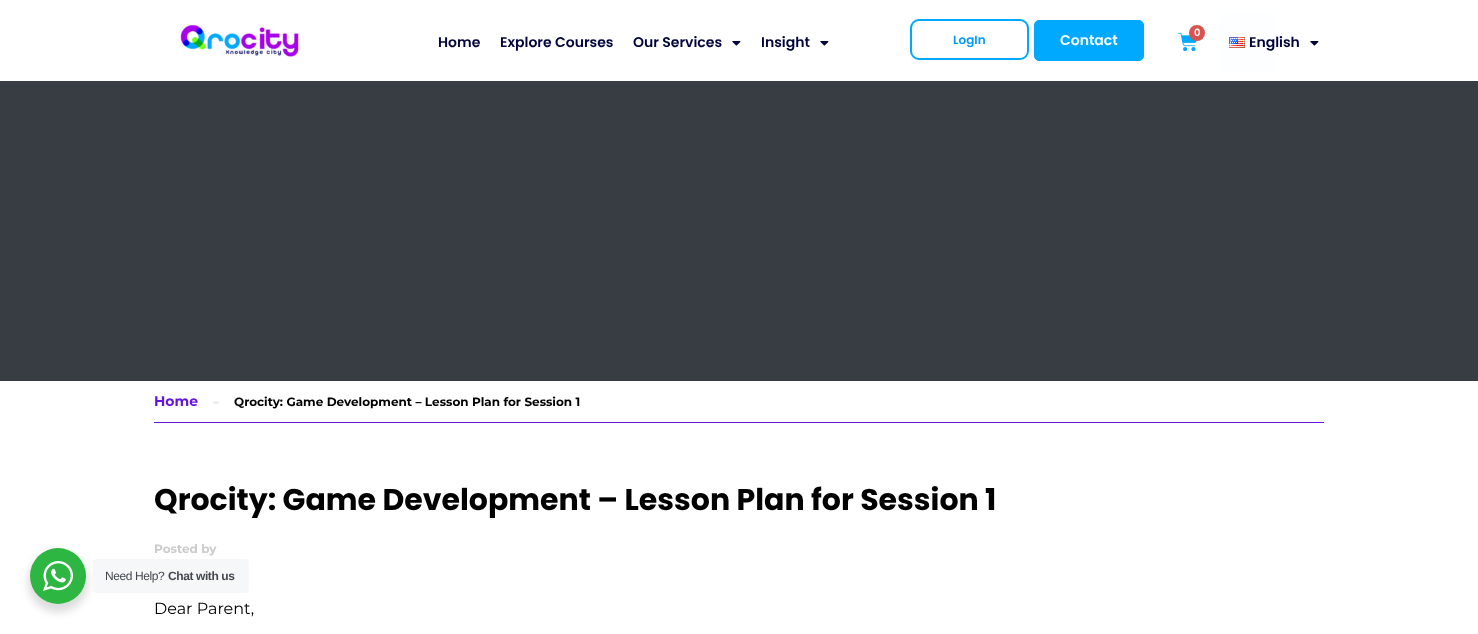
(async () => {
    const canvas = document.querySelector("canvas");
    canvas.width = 1478;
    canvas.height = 634;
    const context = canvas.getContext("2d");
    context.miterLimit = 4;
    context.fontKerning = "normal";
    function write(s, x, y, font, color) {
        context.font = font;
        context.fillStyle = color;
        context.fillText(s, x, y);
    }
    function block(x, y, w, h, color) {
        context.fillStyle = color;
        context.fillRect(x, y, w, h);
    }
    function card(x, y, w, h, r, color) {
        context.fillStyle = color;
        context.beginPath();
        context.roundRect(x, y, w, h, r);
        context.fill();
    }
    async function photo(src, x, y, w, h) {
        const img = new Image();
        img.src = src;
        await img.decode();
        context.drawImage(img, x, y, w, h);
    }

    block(0, 0, 1478, 634, "rgb(255, 255, 255)");
    await photo("media/1.png", 180, 24, 119, 33);
    await photo("media/2.png", 1178, 32, 19, 20);
    context.fillStyle = "rgb(217, 83, 79)";
    context.beginPath();
    context.arc(1197, 33, 8, 0, Math.PI * 2);
    context.fill();
    write("0", 1194, 36, "600 10px Poppins", "rgb(255, 255, 255)");
    write("Home", 438, 47, "600 14px Poppins", "rgb(0, 4, 58)");
    write("Explore Courses", 500, 47, "600 14px Poppins", "rgb(0, 4, 58)");
    write("Our Services", 633, 47, "600 14px Poppins", "rgb(0, 4, 58)");
    await photo("media/3.png", 732, 41, 9, 5);
    write("Insight", 761, 47, "600 14px Poppins", "rgb(0, 4, 58)");
    await photo("media/3.png", 820, 41, 9, 5);
    context.beginPath();
    context.roundRect(911, 20, 117, 39, 8);
    context.strokeStyle = "rgb(0, 169, 254)";
    context.lineWidth = 2;
    context.stroke();
    write("LogIn", 953, 44, "600 12px Poppins", "rgb(2, 153, 255)");
    context.fillStyle = "rgb(0, 169, 254)";
    context.beginPath();
    context.roundRect(1034.5, 20.5, 109, 40, 4.5);
    context.fill();
    context.lineWidth = 1;
    context.stroke();
    write("Contact", 1060, 45, "600 14px Poppins", "rgb(255, 255, 255)");
    block(1218, 10, 60, 61, "rgb(252, 254, 255)");
    await photo("media/4.png", 1229, 37, 16, 11);
    write("English", 1249, 47, "600 14px Poppins", "rgb(0, 4, 58)");
    await photo("media/3.png", 1310, 41, 9, 5);
    block(0, 81, 1478, 300, "rgb(56, 61, 67)");
    block(154, 422, 1170, 1, "rgb(102, 21, 224)");
    write("Home", 154, 406, "bold 14px Montserrat", "rgb(102, 21, 224)");
    context.fillStyle = "rgb(238, 238, 238)";
    context.beginPath();
    context.ellipse(216, 402.5, 3, 1.5, 0, 0, Math.PI * 2);
    context.fill();
    write("Qrocity: Game Development – Lesson Plan for Session 1", 234, 406, "bold 12px Montserrat", "rgb(0, 0, 0)");
    write("Qrocity: Game Development – Lesson Plan for Session 1", 154, 510, "bold 30px Poppins", "rgb(0, 0, 0)");
    write("Posted by", 154, 553, "bold 12px Montserrat", "rgb(204, 204, 204)");
    write("Dear Parent,", 154, 614, "16px Montserrat", "rgb(0, 0, 0)");
    context.fillStyle = "rgba(0, 0, 0, 0.14)";
    context.filter = "blur(4px)";
    context.beginPath();
    context.roundRect(28, 552, 60, 60, 30);
    context.fill();
    context.filter = "none";
    context.fillStyle = "rgb(45, 183, 66)";
    context.beginPath();
    context.arc(58, 576, 28, 0, Math.PI * 2);
    context.fill();
    await photo("media/5.png", 43, 561, 30, 30);
    card(93, 559, 156, 34, 4, "rgb(245, 247, 249)");
    context.letterSpacing = "-0.4px";
    write("Need Help?", 105, 580, "12px Liberation Sans", "rgb(67, 71, 78)");
    write("Chat with us", 168, 580, "bold 12px Liberation Sans", "rgb(67, 71, 78)");
})();
